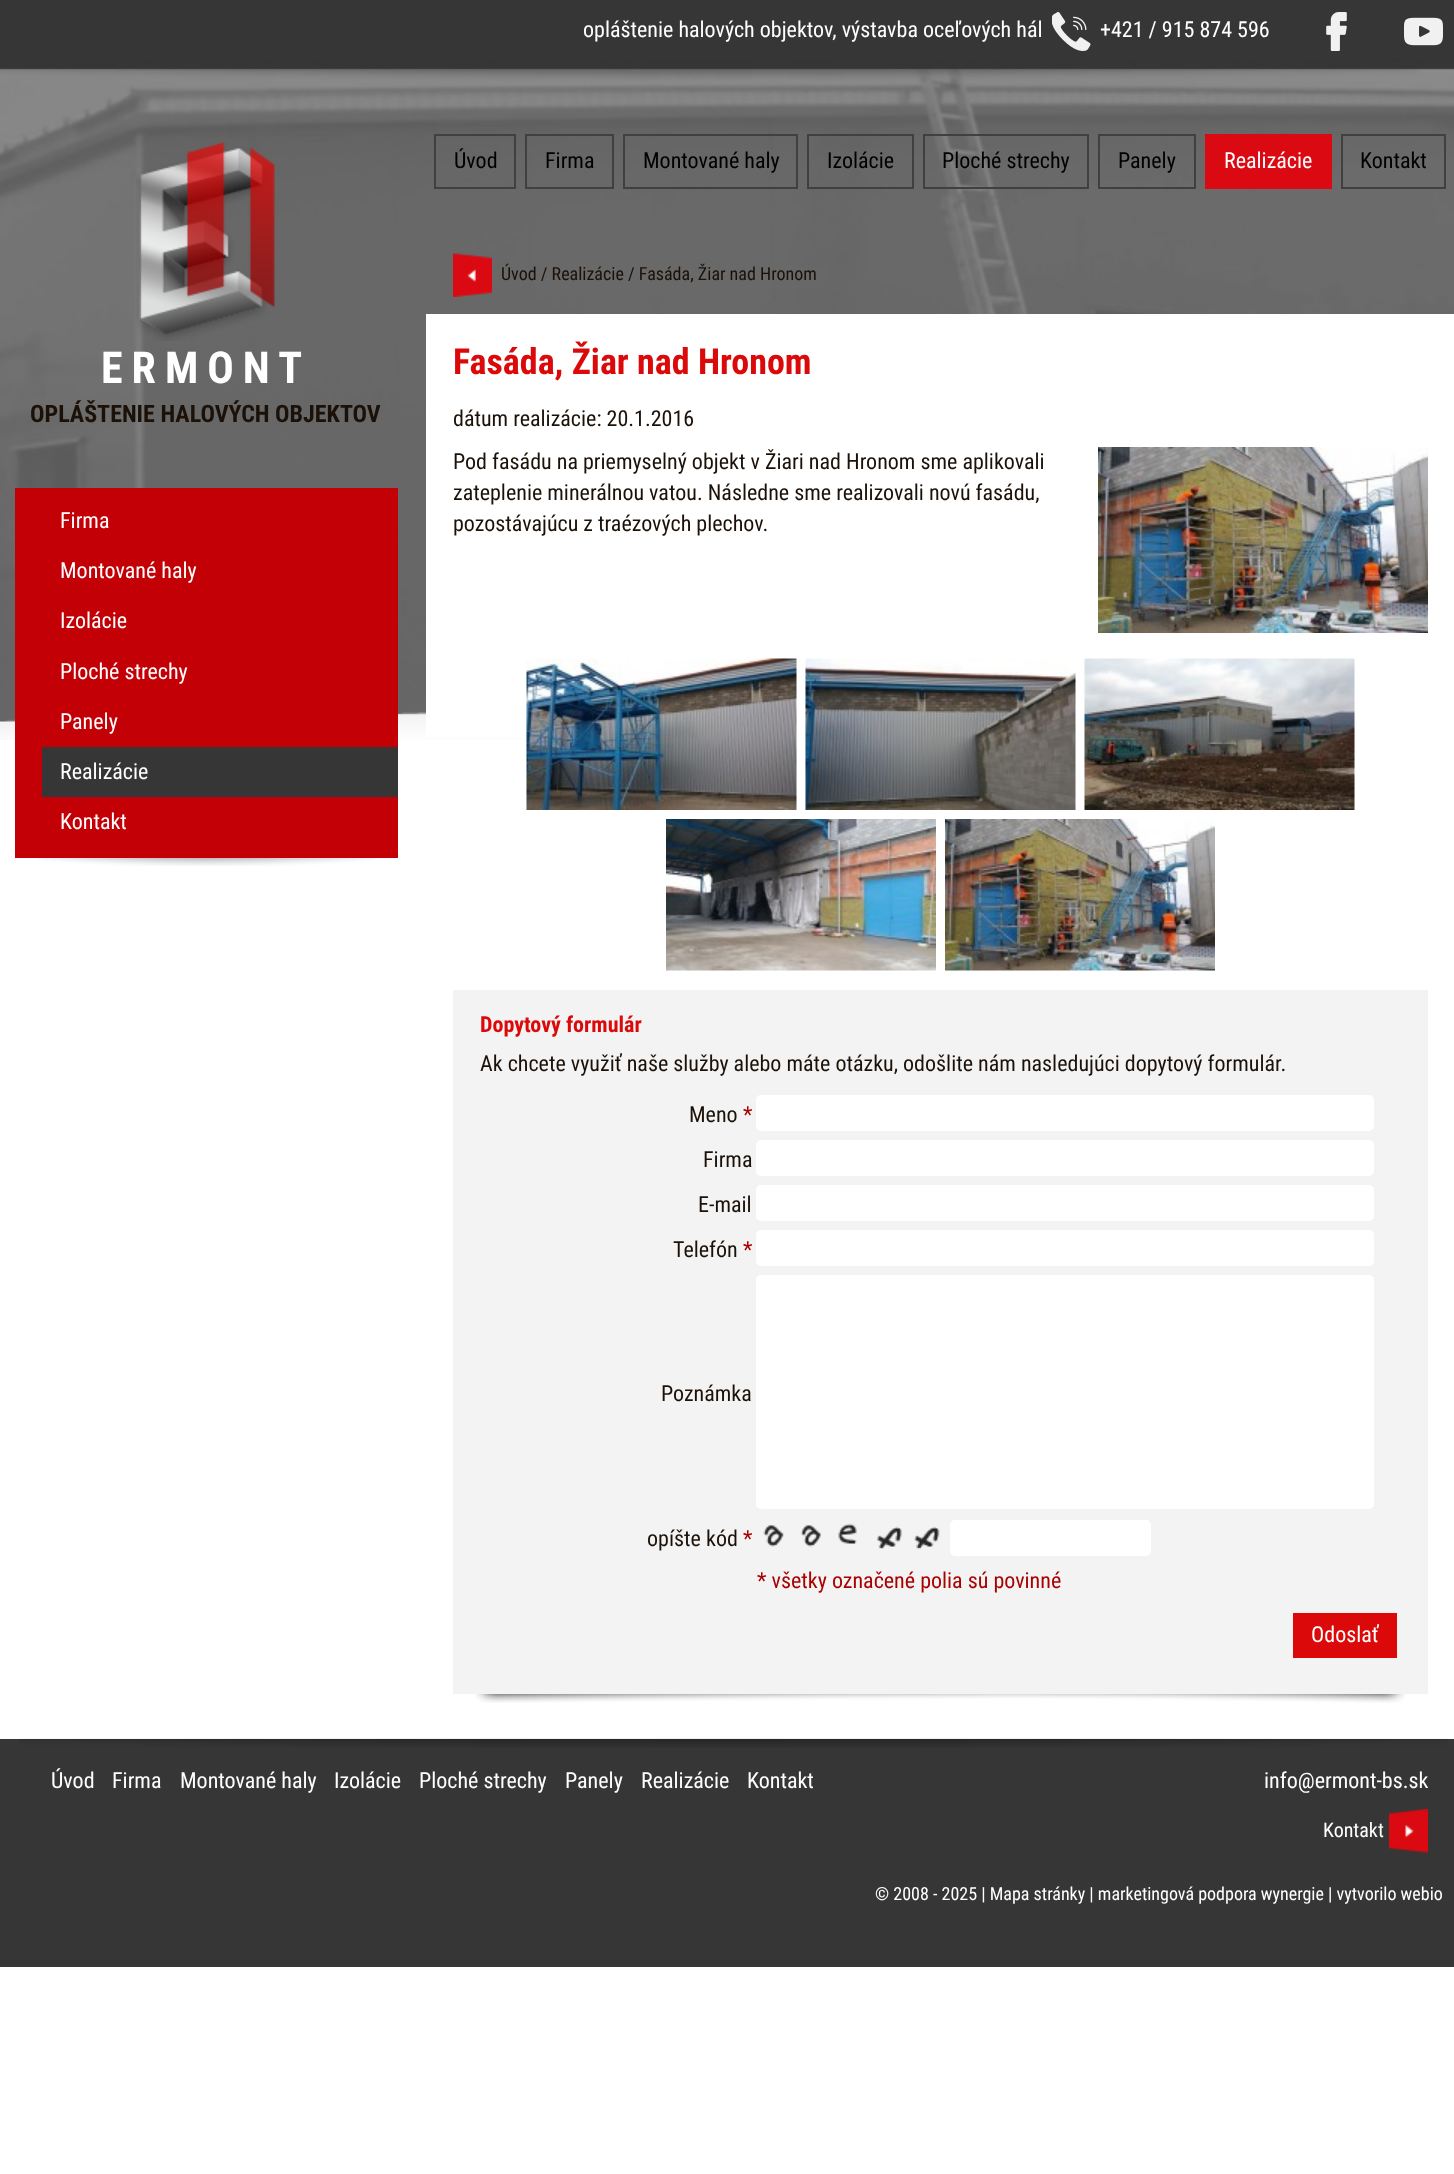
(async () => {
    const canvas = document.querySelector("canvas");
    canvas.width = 1454;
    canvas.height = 2174;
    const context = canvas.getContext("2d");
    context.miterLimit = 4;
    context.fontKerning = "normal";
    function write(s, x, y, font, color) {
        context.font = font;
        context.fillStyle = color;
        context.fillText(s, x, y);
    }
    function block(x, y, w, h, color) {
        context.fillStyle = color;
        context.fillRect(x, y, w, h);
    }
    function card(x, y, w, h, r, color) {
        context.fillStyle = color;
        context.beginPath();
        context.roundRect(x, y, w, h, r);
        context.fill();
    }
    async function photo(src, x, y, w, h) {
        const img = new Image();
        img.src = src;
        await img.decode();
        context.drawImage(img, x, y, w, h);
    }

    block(0, 0, 1454, 2174, "rgb(255, 255, 255)");
    await photo("media/1.png", 0, 0, 1454, 740);
    write("opláštenie halových objektov, výstavba oceľových hál", 583, 37, "22px Roboto Condensed", "rgb(255, 255, 255)");
    await photo("media/2.png", 1052, 12, 39, 39);
    write("+421 / 915 874 596", 1100, 37, "22px Roboto Condensed", "rgb(255, 255, 255)");
    await photo("media/3.png", 1326, 12, 21, 39);
    await photo("media/4.png", 1404, 17, 39, 29);
    await photo("media/5.png", 136, 142, 139, 199);
    context.letterSpacing = "9px";
    write("ERMONT", 101, 383, "bold 44px Roboto Condensed", "rgb(255, 255, 255)");
    context.letterSpacing = "0px";
    write("OPLÁŠTENIE HALOVÝCH OBJEKTOV", 30, 422, "bold 24px Roboto Condensed", "rgb(27, 17, 8)");
    block(15, 488, 383, 370, "rgb(196, 0, 7)");
    write("Firma", 60, 528, "22px Roboto Condensed", "rgb(255, 255, 255)");
    write("Montované haly", 60, 578, "22px Roboto Condensed", "rgb(255, 255, 255)");
    write("Izolácie", 60, 628, "22px Roboto Condensed", "rgb(255, 255, 255)");
    write("Ploché strechy", 60, 679, "22px Roboto Condensed", "rgb(255, 255, 255)");
    write("Panely", 60, 729, "22px Roboto Condensed", "rgb(255, 255, 255)");
    block(42, 747, 356, 50, "rgb(54, 54, 54)");
    write("Realizácie", 60, 779, "22px Roboto Condensed", "rgb(255, 255, 255)");
    write("Kontakt", 60, 829, "22px Roboto Condensed", "rgb(255, 255, 255)");
    await photo("media/6.png", 38, 858, 339, 8);
    context.strokeStyle = "rgb(64, 64, 64)";
    context.lineWidth = 2;
    context.strokeRect(435, 135, 80, 53);
    write("Úvod", 454, 168, "22px Roboto Condensed", "rgb(0, 0, 0)");
    context.strokeRect(526, 135, 87, 53);
    write("Firma", 545, 168, "22px Roboto Condensed", "rgb(0, 0, 0)");
    context.strokeRect(624, 135, 173, 53);
    write("Montované haly", 643, 168, "22px Roboto Condensed", "rgb(0, 0, 0)");
    context.strokeRect(808, 135, 105, 53);
    write("Izolácie", 827, 168, "22px Roboto Condensed", "rgb(0, 0, 0)");
    context.strokeRect(924, 135, 164, 53);
    write("Ploché strechy", 942, 168, "22px Roboto Condensed", "rgb(0, 0, 0)");
    context.strokeRect(1099, 135, 96, 53);
    write("Panely", 1118, 168, "22px Roboto Condensed", "rgb(0, 0, 0)");
    block(1205, 134, 127, 55, "rgb(219, 9, 17)");
    write("Realizácie", 1224, 168, "22px Roboto Condensed", "rgb(255, 255, 255)");
    context.strokeRect(1342, 135, 103, 53);
    write("Kontakt", 1360, 168, "22px Roboto Condensed", "rgb(0, 0, 0)");
    await photo("media/7.png", 453, 253, 39, 44);
    write("Úvod / Realizácie / Fasáda, Žiar nad Hronom", 501, 280, "18px Roboto Condensed", "rgb(27, 17, 8)");
    block(426, 314, 1028, 423, "rgb(255, 255, 255)");
    write("Fasáda, Žiar nad Hronom", 453, 374, "bold 36px Roboto Condensed", "rgb(219, 9, 9)");
    write("dátum realizácie: 20.1.2016", 453, 426, "22px Roboto Condensed", "rgb(27, 17, 8)");
    write("Pod fasádu na priemyselný objekt v Žiari nad Hronom sme aplikovali", 453, 469, "22px Roboto Condensed", "rgb(27, 17, 8)");
    write("zateplenie minerálnou vatou. Následne sme realizovali novú fasádu,", 453, 500, "22px Roboto Condensed", "rgb(27, 17, 8)");
    write("pozostávajúcu z traézových plechov.", 453, 531, "22px Roboto Condensed", "rgb(27, 17, 8)");
    await photo("media/8.png", 1098, 447, 330, 186);
    await photo("media/9.png", 526, 658, 271, 152);
    await photo("media/10.png", 805, 658, 271, 152);
    await photo("media/11.png", 1084, 658, 271, 152);
    await photo("media/12.png", 666, 819, 270, 152);
    await photo("media/13.png", 945, 819, 270, 152);
    block(453, 990, 975, 704, "rgb(243, 243, 243)");
    write("Dopytový formulár", 480, 1032, "bold 22px Roboto Condensed", "rgb(219, 9, 9)");
    write("Ak chcete využiť naše služby alebo máte otázku, odošlite nám nasledujúci dopytový formulár.", 480, 1071, "22px Roboto Condensed", "rgb(27, 17, 8)");
    write("Meno", 689, 1122, "22px Roboto Condensed", "rgb(27, 17, 8)");
    write("*", 743, 1122, "22px Roboto Condensed", "rgb(169, 0, 0)");
    card(756, 1095, 618, 36, 5, "rgb(255, 255, 255)");
    write("Firma", 703, 1167, "22px Roboto Condensed", "rgb(27, 17, 8)");
    card(756, 1140, 618, 36, 5, "rgb(255, 255, 255)");
    write("E-mail", 698, 1212, "22px Roboto Condensed", "rgb(27, 17, 8)");
    card(756, 1185, 618, 36, 5, "rgb(255, 255, 255)");
    write("Telefón", 673, 1257, "22px Roboto Condensed", "rgb(27, 17, 8)");
    write("*", 743, 1257, "22px Roboto Condensed", "rgb(169, 0, 0)");
    card(756, 1230, 618, 36, 5, "rgb(255, 255, 255)");
    write("Poznámka", 661, 1401, "22px Roboto Condensed", "rgb(27, 17, 8)");
    card(756, 1275, 618, 234, 5, "rgb(255, 255, 255)");
    write("opíšte kód", 647, 1546, "22px Roboto Condensed", "rgb(27, 17, 8)");
    write("*", 743, 1546, "22px Roboto Condensed", "rgb(169, 0, 0)");
    await photo("media/14.png", 763, 1525, 21, 22);
    await photo("media/15.png", 800, 1525, 21, 22);
    await photo("media/16.png", 838, 1523, 19, 21);
    await photo("media/17.png", 877, 1526, 25, 23);
    await photo("media/18.png", 914, 1526, 26, 23);
    card(950, 1520, 201, 36, 5, "rgb(255, 255, 255)");
    write("* všetky označené polia sú povinné", 757, 1588, "22px Roboto Condensed", "rgb(169, 0, 0)");
    block(1293, 1613, 104, 45, "rgb(219, 9, 9)");
    write("Odoslať", 1311, 1642, "22px Roboto Condensed", "rgb(255, 255, 255)");
    await photo("media/19.png", 475, 1694, 930, 9);
    block(0, 1739, 1454, 228, "rgb(54, 54, 54)");
    await photo("media/20.png", 19, 1738, 1429, 10);
    write("Úvod", 51, 1788, "22px Roboto Condensed", "rgb(255, 255, 255)");
    write("Firma", 112, 1788, "22px Roboto Condensed", "rgb(255, 255, 255)");
    write("Montované haly", 180, 1788, "22px Roboto Condensed", "rgb(255, 255, 255)");
    write("Izolácie", 334, 1788, "22px Roboto Condensed", "rgb(255, 255, 255)");
    write("Ploché strechy", 419, 1788, "22px Roboto Condensed", "rgb(255, 255, 255)");
    write("Panely", 565, 1788, "22px Roboto Condensed", "rgb(255, 255, 255)");
    write("Realizácie", 641, 1788, "22px Roboto Condensed", "rgb(255, 255, 255)");
    write("Kontakt", 747, 1788, "22px Roboto Condensed", "rgb(255, 255, 255)");
    write("info@ermont-bs.sk", 1264, 1788, "22px Roboto Condensed", "rgb(255, 255, 255)");
    write("Kontakt", 1323, 1837, "20px Roboto Condensed", "rgb(255, 255, 255)");
    await photo("media/21.png", 1389, 1809, 39, 44);
    write("© 2008 - 2025 | Mapa stránky | marketingová podpora wynergie | vytvorilo webio", 875, 1900, "18px Roboto Condensed", "rgb(255, 255, 255)");
})();
